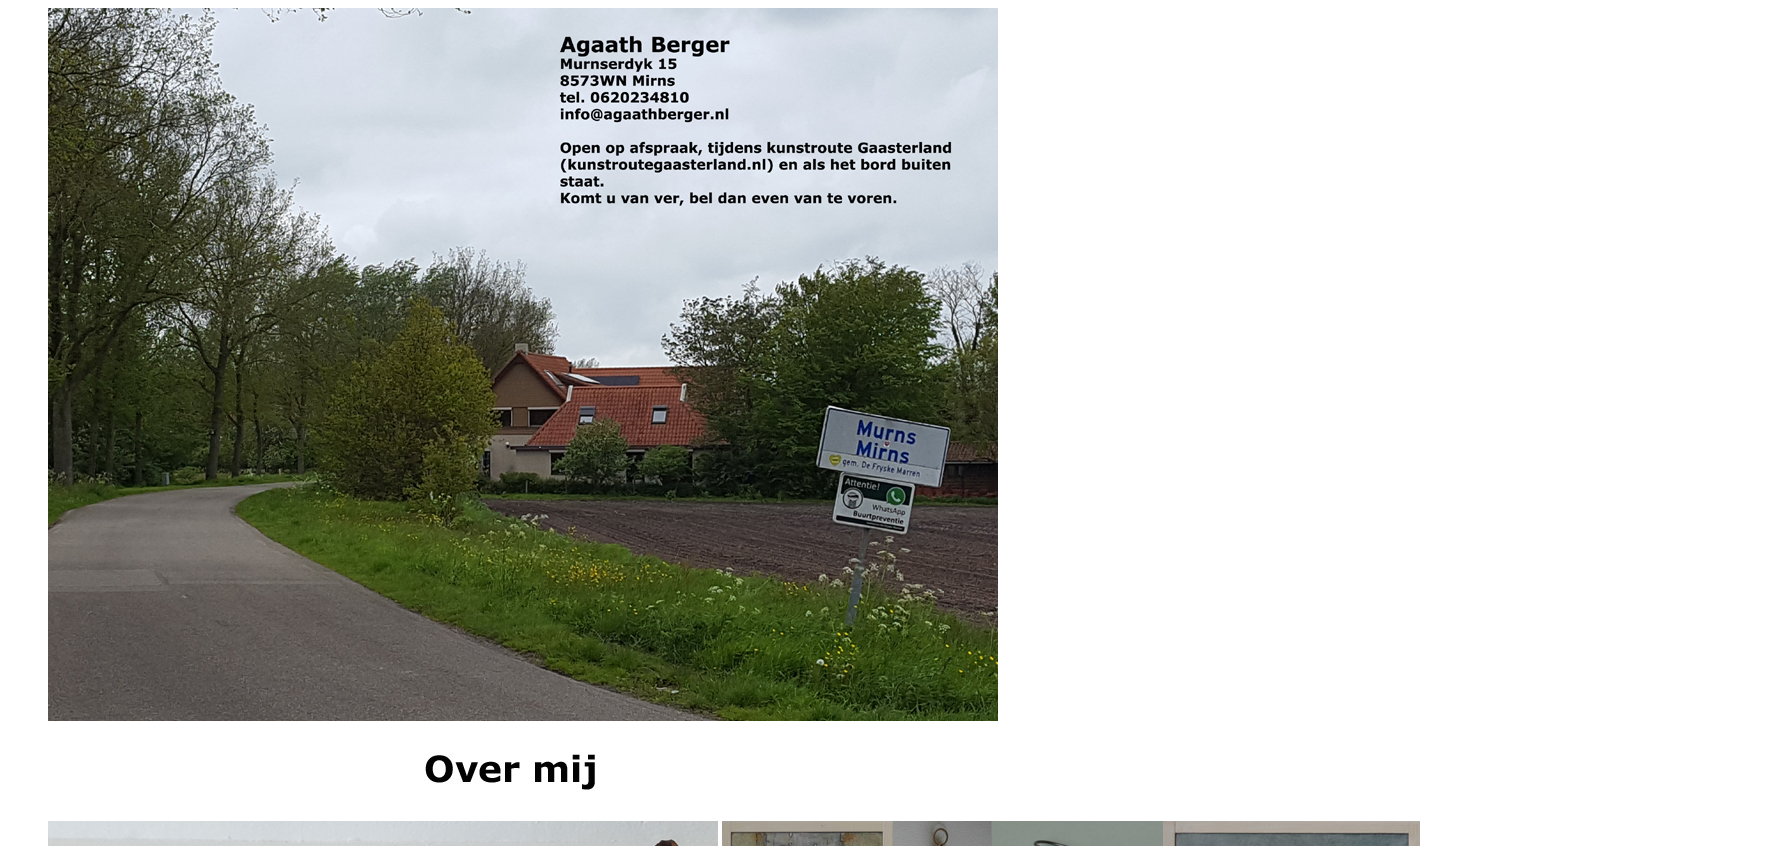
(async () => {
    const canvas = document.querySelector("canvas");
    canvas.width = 1770;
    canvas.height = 846;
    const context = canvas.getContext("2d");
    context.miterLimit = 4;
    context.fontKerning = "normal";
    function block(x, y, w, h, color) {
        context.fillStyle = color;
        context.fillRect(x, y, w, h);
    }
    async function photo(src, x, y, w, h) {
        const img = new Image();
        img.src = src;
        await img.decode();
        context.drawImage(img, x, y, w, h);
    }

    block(0, 0, 1770, 846, "rgb(255, 255, 255)");
    await photo("media/1.png", 48, 8, 950, 713);
    await photo("media/2.png", 424, 753, 174, 39);
    await photo("media/3.png", 48, 821, 670, 25);
    await photo("media/4.png", 722, 821, 171, 25);
    await photo("media/5.png", 893, 821, 99, 25);
    await photo("media/6.png", 992, 821, 171, 25);
    await photo("media/7.png", 1163, 821, 257, 25);
})();
